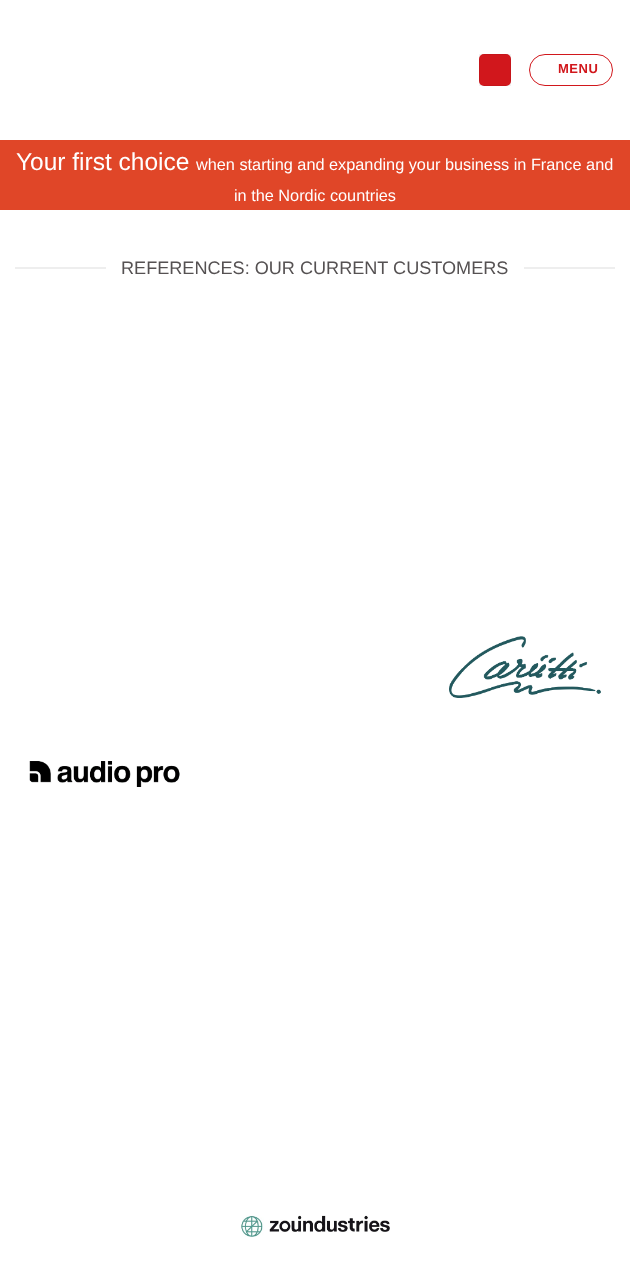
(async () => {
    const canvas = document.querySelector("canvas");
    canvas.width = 630;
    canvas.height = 1273;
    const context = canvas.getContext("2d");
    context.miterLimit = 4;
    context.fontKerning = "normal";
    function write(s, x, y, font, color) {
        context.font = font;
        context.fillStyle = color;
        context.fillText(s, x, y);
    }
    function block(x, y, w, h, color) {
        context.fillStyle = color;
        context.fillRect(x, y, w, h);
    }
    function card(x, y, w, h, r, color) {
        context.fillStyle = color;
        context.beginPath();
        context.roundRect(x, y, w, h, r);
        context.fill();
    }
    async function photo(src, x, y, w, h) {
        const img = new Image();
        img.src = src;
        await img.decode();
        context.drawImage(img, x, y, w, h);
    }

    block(0, 0, 630, 1273, "rgb(255, 255, 255)");
    card(479, 54, 32, 32, 5, "rgb(209, 23, 28)");
    context.strokeStyle = "rgba(0, 0, 0, 0.05)";
    context.strokeRect(479.5, 54.5, 31, 31);
    context.beginPath();
    context.roundRect(529.5, 54.5, 83, 31, 15.5);
    context.strokeStyle = "rgb(209, 23, 28)";
    context.stroke();
    context.letterSpacing = "0.5px";
    write("MENU", 558, 73, "bold 13px Liberation Sans", "rgb(209, 23, 28)");
    block(0, 140, 630, 70, "rgb(224, 70, 40)");
    context.letterSpacing = "0px";
    write("Your first choice", 16, 170, "24.5px Liberation Sans", "rgb(255, 255, 255)");
    write("when starting and expanding your business in France and", 196, 170, "16.3px Liberation Sans", "rgb(255, 255, 255)");
    write("in the Nordic countries", 234, 201, "16.3px Liberation Sans", "rgb(255, 255, 255)");
    block(15, 267, 91, 2, "rgb(238, 238, 238)");
    write("REFERENCES: OUR CURRENT CUSTOMERS", 121, 274, "18.1px Liberation Sans", "rgb(85, 81, 82)");
    block(524, 267, 91, 2, "rgb(238, 238, 238)");
    await photo("media/1.png", 449, 636, 152, 62);
    await photo("media/2.png", 29, 761, 151, 26);
    await photo("media/3.png", 241, 1215, 149, 22);
})();
